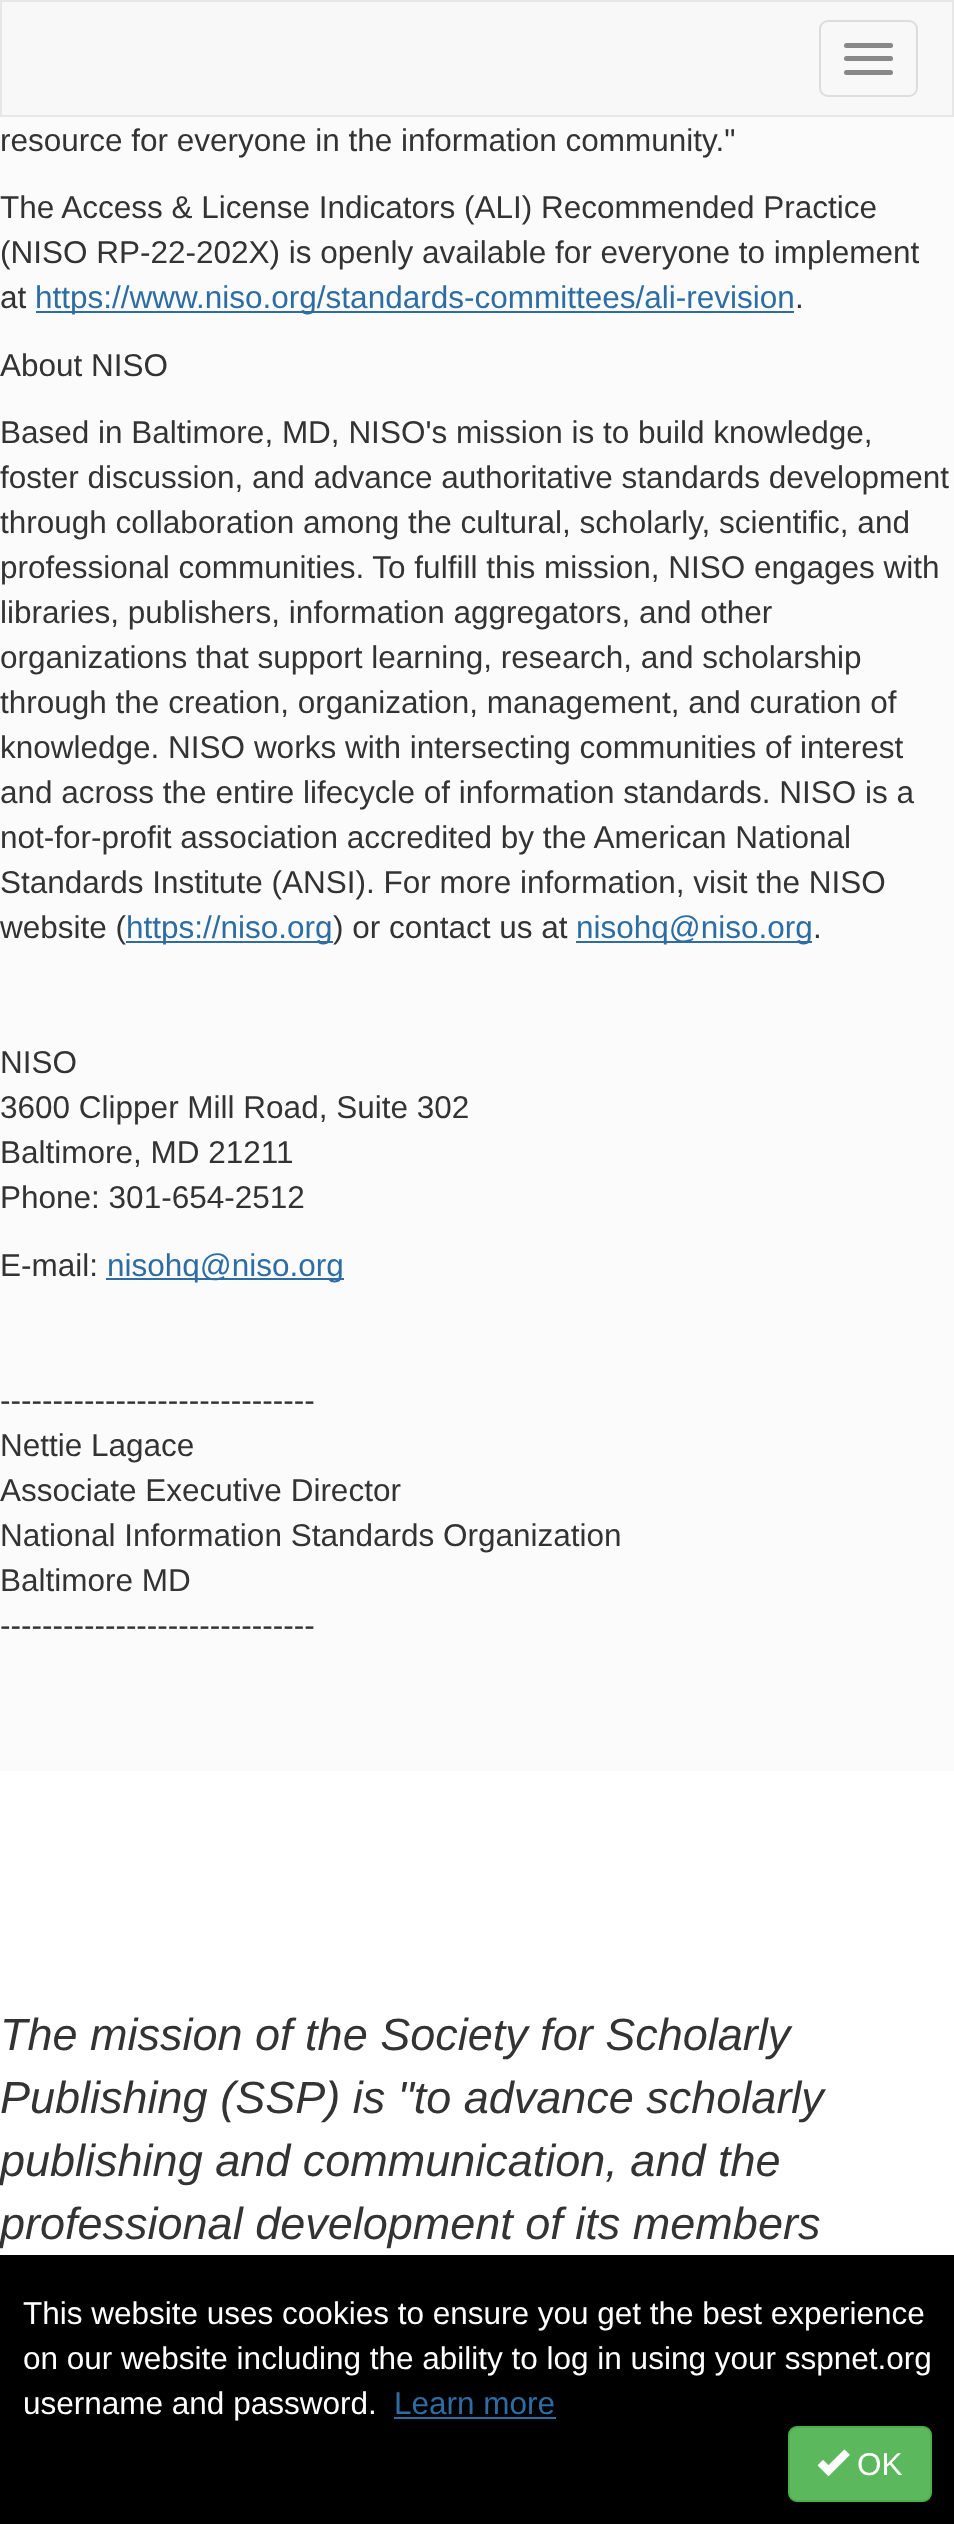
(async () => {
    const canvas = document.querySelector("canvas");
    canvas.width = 954;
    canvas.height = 2524;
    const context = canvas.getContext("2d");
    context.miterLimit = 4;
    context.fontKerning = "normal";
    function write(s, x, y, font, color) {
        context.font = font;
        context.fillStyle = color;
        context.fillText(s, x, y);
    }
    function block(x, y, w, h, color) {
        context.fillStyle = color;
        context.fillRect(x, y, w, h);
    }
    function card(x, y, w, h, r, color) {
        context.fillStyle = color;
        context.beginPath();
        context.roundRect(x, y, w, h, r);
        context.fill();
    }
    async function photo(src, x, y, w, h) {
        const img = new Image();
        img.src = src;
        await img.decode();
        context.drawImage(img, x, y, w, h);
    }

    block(0, 0, 954, 2524, "rgb(255, 255, 255)");
    context.fillStyle = "rgb(248, 248, 248)";
    context.beginPath();
    context.rect(1, 1, 952, 115);
    context.fill();
    context.strokeStyle = "rgb(231, 231, 231)";
    context.lineWidth = 2;
    context.stroke();
    context.beginPath();
    context.roundRect(820, 21, 97, 75, 8);
    context.strokeStyle = "rgb(221, 221, 221)";
    context.stroke();
    card(844, 43, 49, 5, 2.5, "rgb(136, 136, 136)");
    card(844, 56, 49, 5, 2.5, "rgb(136, 136, 136)");
    card(844, 70, 49, 5, 2.5, "rgb(136, 136, 136)");
    block(0, 117, 954, 1654, "rgb(251, 251, 251)");
    write("resource for everyone in the information community.\"", 0, 151, "31.5px Liberation Sans", "rgb(51, 51, 51)");
    write("The Access & License Indicators (ALI) Recommended Practice", 0, 218, "31.5px Liberation Sans", "rgb(51, 51, 51)");
    write("(NISO RP-22-202X) is openly available for everyone to implement", 0, 263, "31.5px Liberation Sans", "rgb(51, 51, 51)");
    write("at", 0, 308, "31.5px Liberation Sans", "rgb(51, 51, 51)");
    block(36, 311, 758, 2, "rgb(46, 109, 164)");
    write("https://www.niso.org/standards-committees/ali-revision", 35, 308, "31.5px Liberation Sans", "rgb(46, 109, 164)");
    write(".", 795, 308, "31.5px Liberation Sans", "rgb(51, 51, 51)");
    write("About NISO", 0, 376, "31.5px Liberation Sans", "rgb(51, 51, 51)");
    write("Based in Baltimore, MD, NISO's mission is to build knowledge,", 0, 443, "31.5px Liberation Sans", "rgb(51, 51, 51)");
    write("foster discussion, and advance authoritative standards development", 0, 488, "31.5px Liberation Sans", "rgb(51, 51, 51)");
    write("through collaboration among the cultural, scholarly, scientific, and", 0, 533, "31.5px Liberation Sans", "rgb(51, 51, 51)");
    write("professional communities. To fulfill this mission, NISO engages with", 0, 578, "31.5px Liberation Sans", "rgb(51, 51, 51)");
    write("libraries, publishers, information aggregators, and other", 0, 623, "31.5px Liberation Sans", "rgb(51, 51, 51)");
    write("organizations that support learning, research, and scholarship", 0, 668, "31.5px Liberation Sans", "rgb(51, 51, 51)");
    write("through the creation, organization, management, and curation of", 0, 713, "31.5px Liberation Sans", "rgb(51, 51, 51)");
    write("knowledge. NISO works with intersecting communities of interest", 0, 758, "31.5px Liberation Sans", "rgb(51, 51, 51)");
    write("and across the entire lifecycle of information standards. NISO is a", 0, 803, "31.5px Liberation Sans", "rgb(51, 51, 51)");
    write("not-for-profit association accredited by the American National", 0, 848, "31.5px Liberation Sans", "rgb(51, 51, 51)");
    write("Standards Institute (ANSI). For more information, visit the NISO", 0, 893, "31.5px Liberation Sans", "rgb(51, 51, 51)");
    write("website (", 0, 938, "31.5px Liberation Sans", "rgb(51, 51, 51)");
    block(126, 941, 207, 2, "rgb(46, 109, 164)");
    write("https://niso.org", 126, 938, "31.5px Liberation Sans", "rgb(46, 109, 164)");
    write(") or contact us at", 333, 938, "31.5px Liberation Sans", "rgb(51, 51, 51)");
    block(576, 941, 236, 2, "rgb(46, 109, 164)");
    write("nisohq@niso.org", 576, 938, "31.5px Liberation Sans", "rgb(46, 109, 164)");
    write(".", 813, 938, "31.5px Liberation Sans", "rgb(51, 51, 51)");
    write("NISO", 0, 1073, "31.5px Liberation Sans", "rgb(51, 51, 51)");
    write("3600 Clipper Mill Road, Suite 302", 0, 1118, "31.5px Liberation Sans", "rgb(51, 51, 51)");
    write("Baltimore, MD 21211", 0, 1163, "31.5px Liberation Sans", "rgb(51, 51, 51)");
    write("Phone: 301-654-2512", 0, 1208, "31.5px Liberation Sans", "rgb(51, 51, 51)");
    write("E-mail:", 0, 1276, "31.5px Liberation Sans", "rgb(51, 51, 51)");
    block(106, 1278, 238, 2, "rgb(46, 109, 164)");
    write("nisohq@niso.org", 107, 1276, "31.5px Liberation Sans", "rgb(46, 109, 164)");
    write("------------------------------", 0, 1411, "31.5px Liberation Sans", "rgb(51, 51, 51)");
    write("Nettie Lagace", 0, 1456, "31.5px Liberation Sans", "rgb(51, 51, 51)");
    write("Associate Executive Director", 0, 1501, "31.5px Liberation Sans", "rgb(51, 51, 51)");
    write("National Information Standards Organization", 0, 1546, "31.5px Liberation Sans", "rgb(51, 51, 51)");
    write("Baltimore MD", 0, 1591, "31.5px Liberation Sans", "rgb(51, 51, 51)");
    write("------------------------------", 0, 1636, "31.5px Liberation Sans", "rgb(51, 51, 51)");
    write("The mission of the Society for Scholarly", 0, 2050, "italic 45px Liberation Sans", "rgb(51, 51, 51)");
    write("Publishing (SSP) is \"to advance scholarly", 0, 2113, "italic 45px Liberation Sans", "rgb(51, 51, 51)");
    write("publishing and communication, and the", 0, 2176, "italic 45px Liberation Sans", "rgb(51, 51, 51)");
    write("professional development of its members", 0, 2239, "italic 45px Liberation Sans", "rgb(51, 51, 51)");
    block(0, 2255, 954, 269, "rgb(0, 0, 0)");
    write("This website uses cookies to ensure you get the best experience", 23, 2324, "31.5px Liberation Sans", "rgb(255, 255, 255)");
    write("on our website including the ability to log in using your sspnet.org", 23, 2369, "31.5px Liberation Sans", "rgb(255, 255, 255)");
    write("username and password.", 23, 2414, "31.5px Liberation Sans", "rgb(255, 255, 255)");
    write("Learn more", 394, 2414, "31.5px Liberation Sans", "rgb(46, 109, 164)");
    block(394, 2417, 162, 2, "rgb(46, 109, 164)");
    context.fillStyle = "rgb(92, 184, 92)";
    context.beginPath();
    context.roundRect(789, 2427, 142, 74, 8);
    context.fill();
    context.strokeStyle = "rgb(76, 174, 76)";
    context.stroke();
    await photo("media/1.png", 817, 2449, 33, 27);
    write("OK", 857, 2475, "31.5px Liberation Sans", "rgb(255, 255, 255)");
})();
